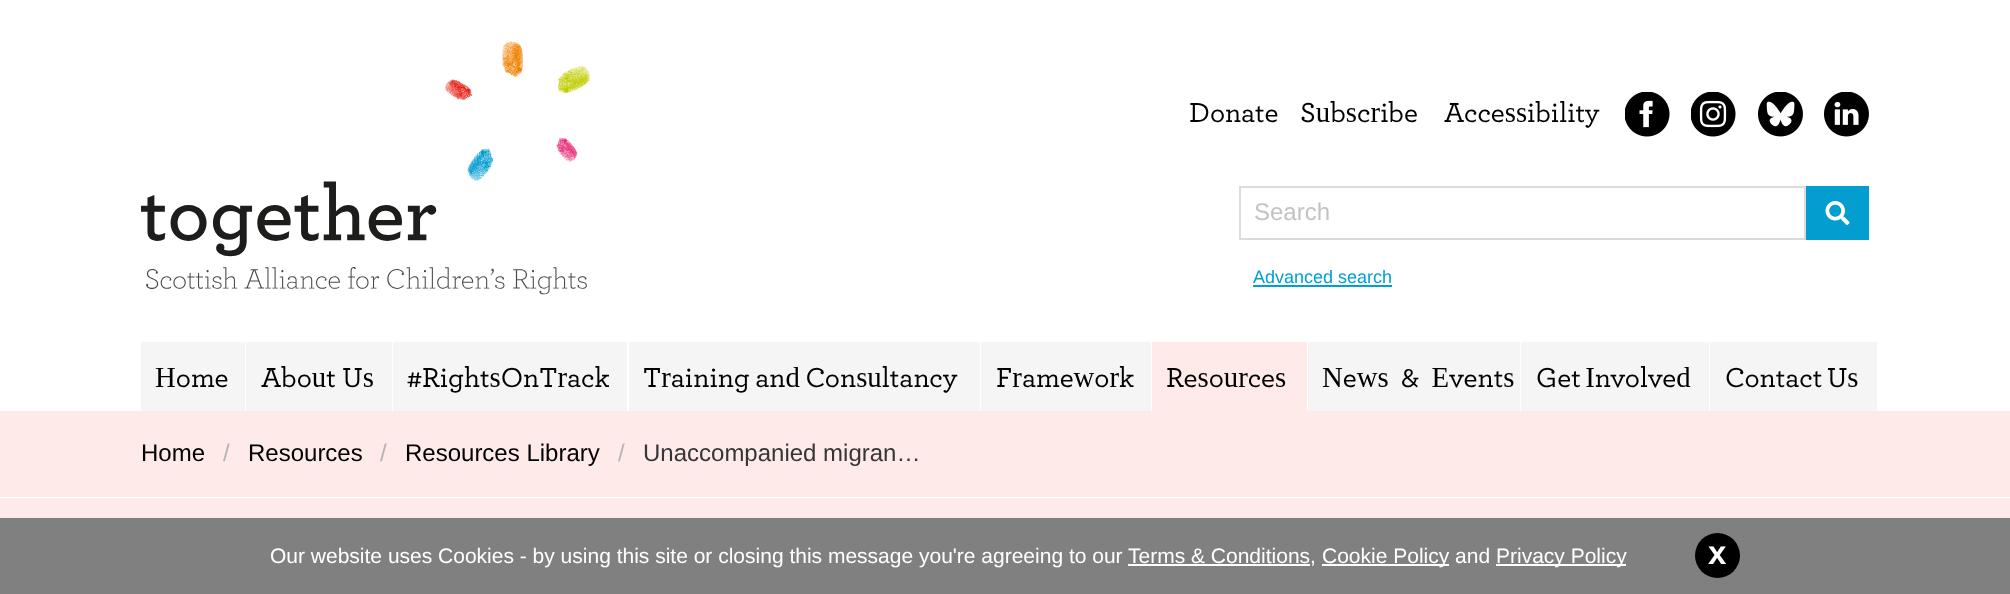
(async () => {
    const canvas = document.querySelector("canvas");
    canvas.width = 2010;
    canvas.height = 594;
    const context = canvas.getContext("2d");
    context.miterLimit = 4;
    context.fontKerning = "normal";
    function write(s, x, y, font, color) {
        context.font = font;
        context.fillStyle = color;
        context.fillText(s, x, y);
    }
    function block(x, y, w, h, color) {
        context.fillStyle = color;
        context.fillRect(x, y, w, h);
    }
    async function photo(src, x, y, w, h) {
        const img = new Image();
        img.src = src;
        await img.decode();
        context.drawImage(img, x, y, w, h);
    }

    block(0, 0, 2010, 594, "rgb(255, 255, 255)");
    await photo("media/1.png", 141, 41, 449, 254);
    write("Donate", 1189, 122, "300 28.75px 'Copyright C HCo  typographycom'", "rgb(0, 0, 0)");
    write("Subscribe", 1300, 122, "300 28.75px 'Copyright C HCo  typographycom'", "rgb(0, 0, 0)");
    write("Accessibility", 1444, 122, "300 28.75px 'Copyright C HCo  typographycom'", "rgb(0, 0, 0)");
    await photo("media/2.png", 1625, 92, 45, 45);
    await photo("media/3.png", 1691, 92, 45, 45);
    await photo("media/4.png", 1758, 92, 45, 45);
    await photo("media/5.png", 1824, 92, 45, 45);
    context.strokeStyle = "rgb(219, 219, 219)";
    context.lineWidth = 2;
    context.strokeRect(1240, 187, 565, 52);
    write("Search", 1254, 220, "24px Liberation Sans", "rgb(195, 195, 195)");
    block(1806, 186, 63, 54, "rgb(3, 157, 208)");
    await photo("media/6.png", 1825, 201, 25, 24);
    write("Advanced search", 1253, 283, "18px Liberation Sans", "rgb(0, 159, 213)");
    block(1253, 285, 139, 2, "rgb(0, 159, 213)");
    block(141, 342, 104, 69, "rgb(245, 245, 245)");
    write("Home", 155, 387, "300 28.75px 'Copyright C HCo  typographycom'", "rgb(0, 0, 0)");
    block(246, 342, 146, 69, "rgb(245, 245, 245)");
    write("About Us", 261, 387, "300 28.75px 'Copyright C HCo  typographycom'", "rgb(0, 0, 0)");
    block(393, 342, 234, 69, "rgb(245, 245, 245)");
    write("#RightsOnTrack", 407, 387, "300 28.75px 'Copyright C HCo  typographycom'", "rgb(0, 0, 0)");
    block(629, 342, 351, 69, "rgb(245, 245, 245)");
    context.wordSpacing = "-1px";
    write("Training and Consultancy", 643, 387, "300 28.75px 'Copyright C HCo  typographycom'", "rgb(0, 0, 0)");
    block(981, 342, 170, 69, "rgb(245, 245, 245)");
    context.wordSpacing = "0px";
    write("Framework", 996, 387, "300 28.75px 'Copyright C HCo  typographycom'", "rgb(0, 0, 0)");
    block(1152, 342, 155, 69, "rgb(253, 234, 233)");
    write("Resources", 1166, 387, "300 28.75px 'Copyright C HCo  typographycom'", "rgb(0, 0, 0)");
    block(1308, 342, 212, 69, "rgb(245, 245, 245)");
    context.wordSpacing = "6px";
    write("News & Events", 1322, 387, "300 28.75px 'Copyright C HCo  typographycom'", "rgb(0, 0, 0)");
    block(1521, 342, 188, 69, "rgb(245, 245, 245)");
    context.wordSpacing = "-2px";
    write("Get Involved", 1536, 387, "300 28.75px 'Copyright C HCo  typographycom'", "rgb(0, 0, 0)");
    block(1710, 342, 167, 69, "rgb(245, 245, 245)");
    write("Contact Us", 1725, 387, "300 28.75px 'Copyright C HCo  typographycom'", "rgb(0, 0, 0)");
    block(0, 411, 2010, 86, "rgb(253, 234, 233)");
    context.wordSpacing = "0px";
    write("Home", 141, 461, "24px Liberation Sans", "rgb(0, 0, 0)");
    write("/", 223, 461, "24px Liberation Sans", "rgb(181, 181, 181)");
    write("Resources", 248, 461, "24px Liberation Sans", "rgb(0, 0, 0)");
    write("/", 380, 461, "24px Liberation Sans", "rgb(181, 181, 181)");
    write("Resources Library", 405, 461, "24px Liberation Sans", "rgb(0, 0, 0)");
    write("/", 618, 461, "24px Liberation Sans", "rgb(181, 181, 181)");
    write("Unaccompanied migran…", 643, 461, "24px Liberation Sans", "rgb(54, 54, 54)");
    block(0, 498, 2010, 20, "rgb(253, 234, 233)");
    block(0, 518, 2010, 76, "rgb(128, 128, 128)");
    write("Our website uses Cookies - by using this site or closing this message you're agreeing to our", 270, 563, "21px Liberation Sans", "rgb(255, 255, 255)");
    block(1128, 564, 182, 2, "rgb(255, 255, 255)");
    write("Terms & Conditions,", 1128, 563, "21px Liberation Sans", "rgb(255, 255, 255)");
    block(1322, 564, 127, 2, "rgb(255, 255, 255)");
    write("Cookie Policy and", 1322, 563, "21px Liberation Sans", "rgb(255, 255, 255)");
    block(1496, 564, 130, 2, "rgb(255, 255, 255)");
    write("Privacy Policy", 1496, 563, "21px Liberation Sans", "rgb(255, 255, 255)");
    context.fillStyle = "rgb(0, 0, 0)";
    context.beginPath();
    context.arc(1717.5, 555.5, 22.5, 0, Math.PI * 2);
    context.fill();
    write("x", 1708, 564, "bold 33px Liberation Sans", "rgb(255, 255, 255)");
})();
